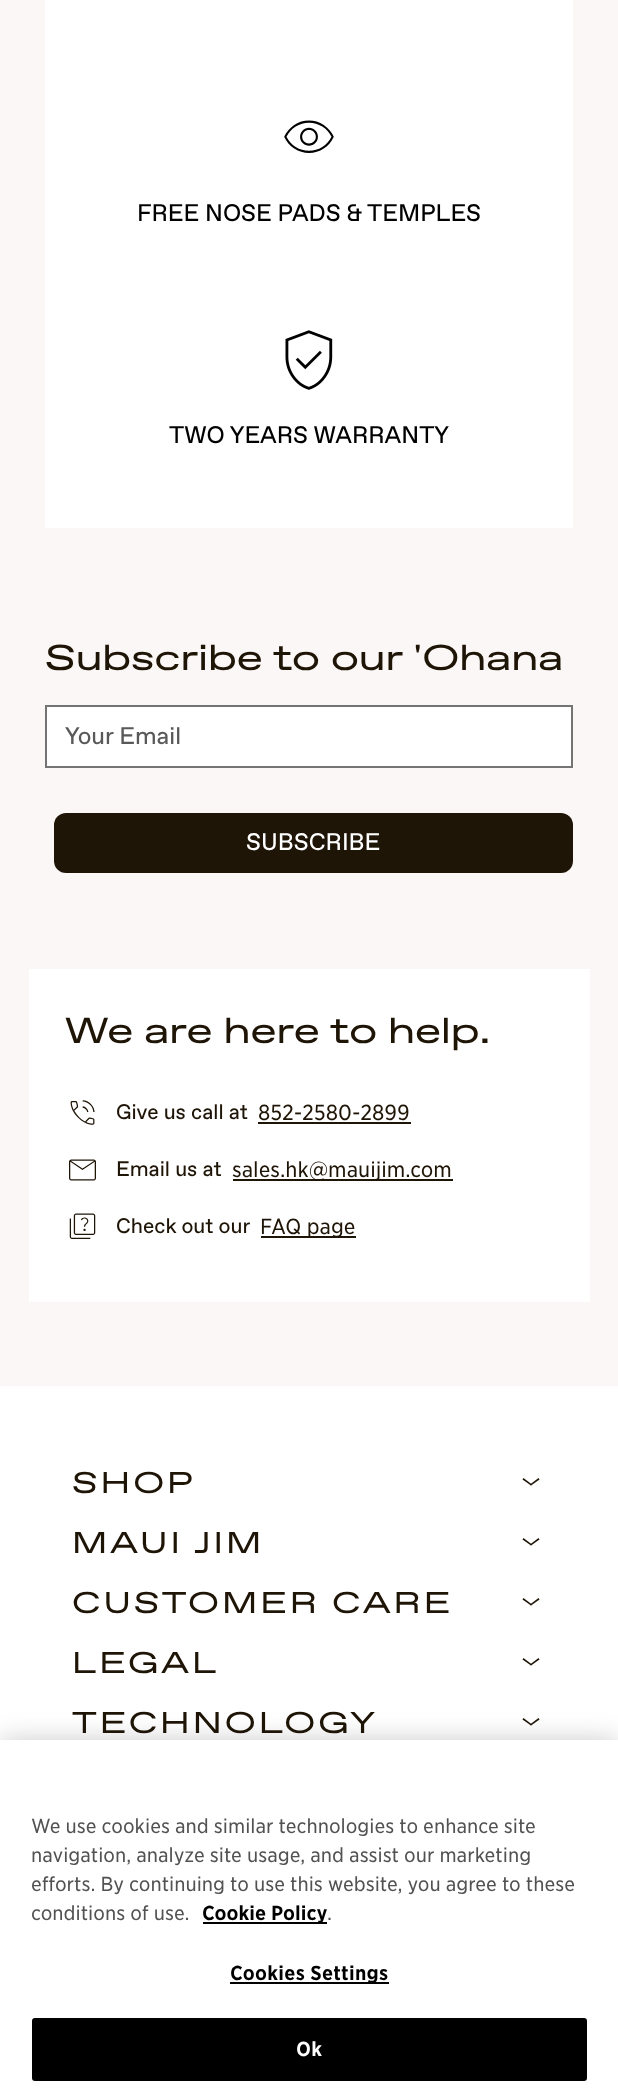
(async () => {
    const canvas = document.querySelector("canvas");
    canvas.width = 618;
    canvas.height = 2095;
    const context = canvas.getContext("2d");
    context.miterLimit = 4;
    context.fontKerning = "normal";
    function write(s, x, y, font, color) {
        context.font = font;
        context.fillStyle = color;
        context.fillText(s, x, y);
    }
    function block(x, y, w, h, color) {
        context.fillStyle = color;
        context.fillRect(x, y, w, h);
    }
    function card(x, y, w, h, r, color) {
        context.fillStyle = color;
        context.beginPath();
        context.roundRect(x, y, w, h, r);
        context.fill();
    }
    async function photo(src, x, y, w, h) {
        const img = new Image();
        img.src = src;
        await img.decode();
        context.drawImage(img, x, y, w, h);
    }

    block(0, 0, 618, 2095, "rgb(255, 255, 255)");
    block(0, 0, 618, 1386, "rgb(250, 247, 246)");
    block(45, 0, 528, 528, "rgb(255, 255, 255)");
    await photo("media/1.png", 284, 120, 50, 33);
    write("FREE NOSE PADS & TEMPLES", 137, 221, "24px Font", "rgb(0, 0, 0)");
    await photo("media/2.png", 285, 330, 48, 60);
    write("TWO YEARS WARRANTY", 169, 443, "24px Font", "rgb(0, 0, 0)");
    write("Subscribe to our 'Ohana", 45, 670, "36px 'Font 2'", "rgb(31, 21, 7)");
    context.fillStyle = "rgb(255, 255, 255)";
    context.beginPath();
    context.rect(46, 706, 526, 61);
    context.fill();
    context.strokeStyle = "rgb(116, 116, 116)";
    context.lineWidth = 2;
    context.stroke();
    write("Your Email", 65, 744, "24px Font", "rgb(89, 89, 89)");
    card(54, 813, 519, 60, 12, "rgb(31, 21, 7)");
    write("SUBSCRIBE", 246, 850, "24px Font", "rgb(255, 255, 255)");
    block(29, 969, 561, 333, "rgb(255, 255, 255)");
    write("We are here to help.", 65, 1043, "36px 'Font 2'", "rgb(31, 21, 7)");
    await photo("media/3.png", 70, 1100, 25, 25);
    write("Give us call at", 116, 1119, "21px Font", "rgb(31, 21, 7)");
    write("852-2580-2899", 258, 1120, "300 21px 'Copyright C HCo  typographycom'", "rgb(31, 21, 7)");
    block(258, 1122, 153, 2, "rgb(31, 21, 7)");
    await photo("media/4.png", 69, 1159, 27, 22);
    write("Email us at", 116, 1176, "21px Font", "rgb(31, 21, 7)");
    block(233, 1179, 220, 2, "rgb(31, 21, 7)");
    write("sales.hk@mauijim.com", 232, 1177, "300 21px 'Copyright C HCo  typographycom'", "rgb(31, 21, 7)");
    await photo("media/5.png", 69, 1213, 27, 26);
    write("Check out our", 116, 1233, "21px Font", "rgb(31, 21, 7)");
    block(261, 1236, 95, 2, "rgb(31, 21, 7)");
    write("FAQ page", 260, 1234, "300 21px 'Copyright C HCo  typographycom'", "rgb(31, 21, 7)");
    context.letterSpacing = "3px";
    write("SHOP", 72, 1493, "30px 'Font 2'", "rgb(31, 21, 7)");
    context.beginPath();
    context.moveTo(523.5, 1478);
    context.lineTo(532, 1484.5);
    context.lineTo(531, 1485.5);
    context.lineTo(522.5, 1479.5);
    context.closePath();
    context.fill();
    context.beginPath();
    context.moveTo(530, 1484.5);
    context.lineTo(538.5, 1478);
    context.lineTo(539.5, 1479.5);
    context.lineTo(531, 1485.5);
    context.closePath();
    context.fill();
    write("MAUI JIM", 72, 1553, "30px 'Font 2'", "rgb(31, 21, 7)");
    context.beginPath();
    context.moveTo(523.5, 1538);
    context.lineTo(532, 1544.5);
    context.lineTo(531, 1545.5);
    context.lineTo(522.5, 1539.5);
    context.closePath();
    context.fill();
    context.beginPath();
    context.moveTo(530, 1544.5);
    context.lineTo(538.5, 1538);
    context.lineTo(539.5, 1539.5);
    context.lineTo(531, 1545.5);
    context.closePath();
    context.fill();
    write("CUSTOMER CARE", 72, 1613, "30px 'Font 2'", "rgb(31, 21, 7)");
    context.beginPath();
    context.moveTo(523.5, 1598);
    context.lineTo(532, 1604.5);
    context.lineTo(531, 1605.5);
    context.lineTo(522.5, 1599.5);
    context.closePath();
    context.fill();
    context.beginPath();
    context.moveTo(530, 1604.5);
    context.lineTo(538.5, 1598);
    context.lineTo(539.5, 1599.5);
    context.lineTo(531, 1605.5);
    context.closePath();
    context.fill();
    write("LEGAL", 72, 1673, "30px 'Font 2'", "rgb(31, 21, 7)");
    context.beginPath();
    context.moveTo(523.5, 1658);
    context.lineTo(532, 1664.5);
    context.lineTo(531, 1665.5);
    context.lineTo(522.5, 1659.5);
    context.closePath();
    context.fill();
    context.beginPath();
    context.moveTo(530, 1664.5);
    context.lineTo(538.5, 1658);
    context.lineTo(539.5, 1659.5);
    context.lineTo(531, 1665.5);
    context.closePath();
    context.fill();
    write("TECHNOLOGY", 72, 1733, "30px 'Font 2'", "rgb(31, 21, 7)");
    context.beginPath();
    context.moveTo(523.5, 1718);
    context.lineTo(532, 1724.5);
    context.lineTo(531, 1725.5);
    context.lineTo(522.5, 1719.5);
    context.closePath();
    context.fill();
    context.beginPath();
    context.moveTo(530, 1724.5);
    context.lineTo(538.5, 1718);
    context.lineTo(539.5, 1719.5);
    context.lineTo(531, 1725.5);
    context.closePath();
    context.fill();
    context.fillStyle = "rgba(0, 0, 0, 0.2)";
    context.filter = "blur(13.5px)";
    context.beginPath();
    context.rect(0, 1740, 618, 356);
    context.fill();
    context.filter = "none";
    block(0, 1740, 618, 355, "rgb(255, 255, 255)");
    context.letterSpacing = "0px";
    write("We use cookies and similar technologies to enhance site", 31, 1833, "300 19.5px 'Copyright C HCo  typographycom'", "rgb(82, 82, 82)");
    write("navigation, analyze site usage, and assist our marketing", 31, 1862, "300 19.5px 'Copyright C HCo  typographycom'", "rgb(82, 82, 82)");
    write("efforts. By continuing to use this website, you agree to these", 31, 1891, "300 19.5px 'Copyright C HCo  typographycom'", "rgb(82, 82, 82)");
    write("conditions of use.", 31, 1920, "300 19.5px 'Copyright C HCo  typographycom'", "rgb(82, 82, 82)");
    block(203, 1922, 124, 2, "rgb(0, 0, 0)");
    write("Cookie Policy", 202, 1920, "19.5px 'Copyright C HCo  typographycom'", "rgb(0, 0, 0)");
    write(".", 327, 1920, "300 19.5px 'Copyright C HCo  typographycom'", "rgb(82, 82, 82)");
    block(230, 1982, 159, 2, "rgb(0, 0, 0)");
    context.letterSpacing = "0.25px";
    write("Cookies Settings", 230, 1980, "19.5px 'Copyright C HCo  typographycom'", "rgb(0, 0, 0)");
    context.beginPath();
    context.roundRect(33, 2019, 553, 61, 2);
    context.fill();
    context.strokeStyle = "rgb(0, 0, 0)";
    context.stroke();
    write("Ok", 296, 2056, "19.5px 'Copyright C HCo  typographycom'", "rgb(255, 255, 255)");
})();
